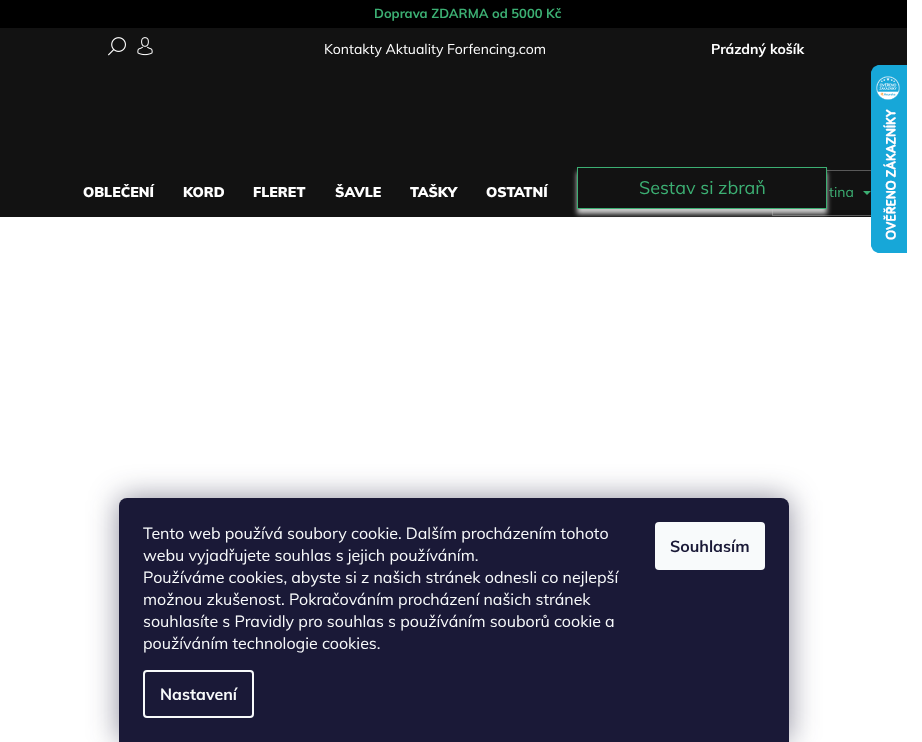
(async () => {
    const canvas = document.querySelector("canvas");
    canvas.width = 922;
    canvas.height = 742;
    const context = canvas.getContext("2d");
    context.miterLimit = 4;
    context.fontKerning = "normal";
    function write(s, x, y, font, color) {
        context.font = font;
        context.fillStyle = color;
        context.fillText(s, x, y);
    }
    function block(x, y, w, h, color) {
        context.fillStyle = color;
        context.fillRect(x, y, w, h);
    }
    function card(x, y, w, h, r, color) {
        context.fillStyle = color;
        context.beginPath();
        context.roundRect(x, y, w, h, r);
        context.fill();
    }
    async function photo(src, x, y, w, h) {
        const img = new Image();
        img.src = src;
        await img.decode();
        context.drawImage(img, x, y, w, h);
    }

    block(0, 0, 922, 742, "rgb(255, 255, 255)");
    block(0, 0, 907, 28, "rgb(0, 0, 0)");
    write("Doprava ZDARMA od 5000 Kč", 374, 18, "bold 13px Muli", "rgb(60, 175, 115)");
    block(0, 28, 907, 189, "rgb(18, 18, 18)");
    await photo("media/1.png", 108, 37, 18, 19);
    await photo("media/2.png", 137, 37, 16, 19);
    write("Kontakty Aktuality Forfencing.com", 324, 54, "14px Muli", "rgb(255, 255, 255)");
    write("Prázdný košík", 711, 54, "bold 14px Muli", "rgb(255, 255, 255)");
    write("OBLEČENÍ", 83, 197, "900 14px Muli", "rgb(255, 255, 255)");
    write("KORD", 183, 197, "900 14px Muli", "rgb(255, 255, 255)");
    write("FLERET", 253, 197, "900 14px Muli", "rgb(255, 255, 255)");
    write("ŠAVLE", 335, 197, "900 14px Muli", "rgb(255, 255, 255)");
    write("TAŠKY", 410, 197, "900 14px Muli", "rgb(255, 255, 255)");
    write("OSTATNÍ", 486, 197, "900 14px Muli", "rgb(255, 255, 255)");
    context.strokeStyle = "rgb(89, 89, 89)";
    context.strokeRect(772.5, 170.5, 104, 45);
    write("tina", 829, 197, "14px Muli", "rgb(60, 175, 115)");
    context.beginPath();
    context.moveTo(863, 191);
    context.lineTo(871, 191);
    context.lineTo(867, 195);
    context.closePath();
    context.fill();
    context.fillStyle = "rgb(204, 204, 204)";
    context.filter = "blur(2.5px)";
    context.beginPath();
    context.rect(577, 172, 250, 42);
    context.fill();
    context.filter = "none";
    context.strokeStyle = "rgb(60, 175, 115)";
    context.strokeRect(577.5, 167.5, 249, 41);
    block(578, 168, 248, 40, "rgb(18, 18, 18)");
    write("Sestav si zbraň", 639, 194, "18px Muli", "rgb(60, 175, 115)");
    await photo("media/3.png", 871, 65, 36, 188);
    context.fillStyle = "rgba(27, 25, 57, 0.5)";
    context.filter = "blur(15px)";
    context.beginPath();
    context.roundRect(119, 498, 670, 244, 8);
    context.fill();
    context.filter = "none";
    context.fillStyle = "rgb(26, 25, 55)";
    context.beginPath();
    context.roundRect(119, 498, 670, 244, [8, 8, 0, 0]);
    context.fill();
    write("Tento web používá soubory cookie. Dalším procházením tohoto", 143, 539, "16px Muli", "rgb(248, 250, 251)");
    write("webu vyjadřujete souhlas s jejich používáním.", 143, 561, "16px Muli", "rgb(248, 250, 251)");
    write("Používáme cookies, abyste si z našich stránek odnesli co nejlepší", 143, 583, "16px Muli", "rgb(248, 250, 251)");
    write("možnou zkušenost. Pokračováním procházení našich stránek", 143, 605, "16px Muli", "rgb(248, 250, 251)");
    write("souhlasíte s Pravidly pro souhlas s používáním souborů cookie a", 143, 627, "16px Muli", "rgb(248, 250, 251)");
    write("používáním technologie cookies.", 143, 649, "16px Muli", "rgb(248, 250, 251)");
    context.beginPath();
    context.roundRect(144, 671, 109, 46, 3);
    context.strokeStyle = "rgb(248, 250, 251)";
    context.lineWidth = 2;
    context.stroke();
    write("Nastavení", 160, 700, "bold 16px Muli", "rgb(248, 250, 251)");
    card(655, 522, 110, 48, 4, "rgb(248, 250, 251)");
    write("Souhlasím", 670, 552, "bold 16px Muli", "rgb(26, 25, 55)");
})();
